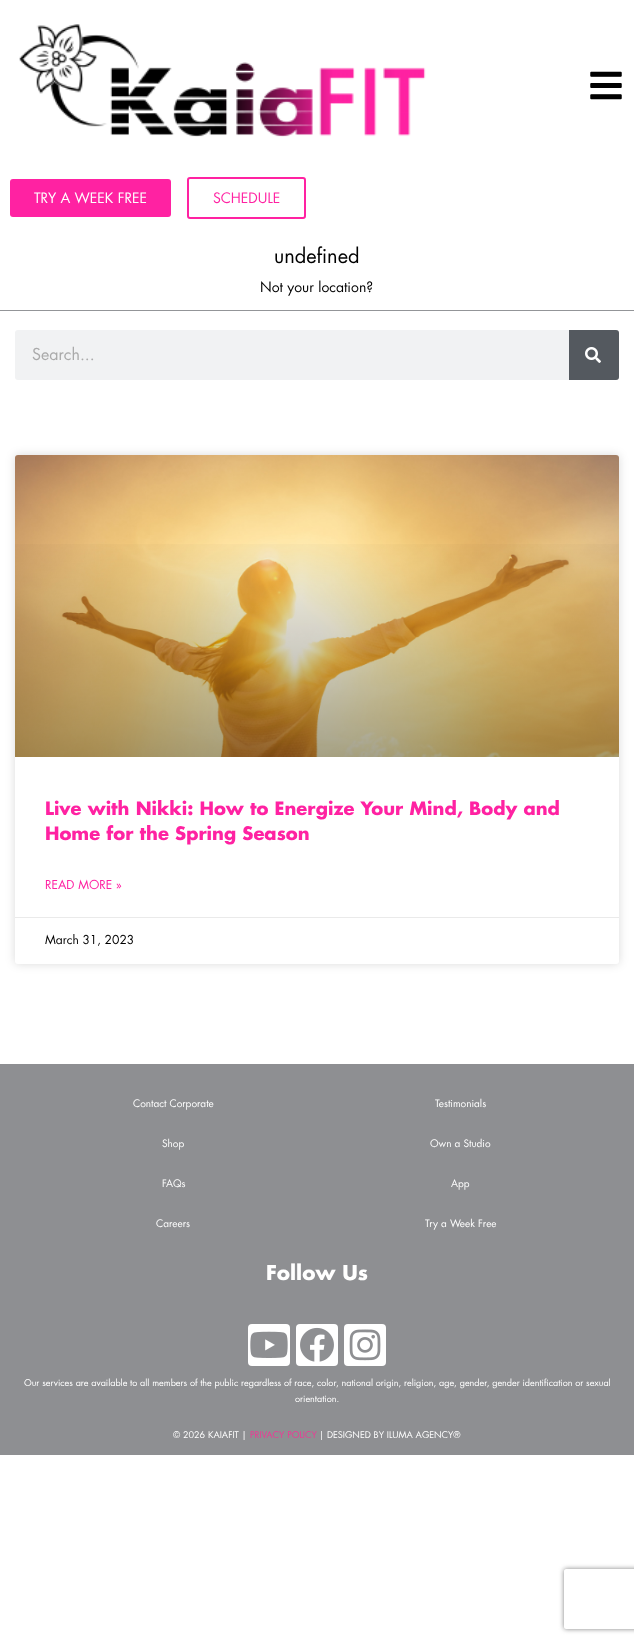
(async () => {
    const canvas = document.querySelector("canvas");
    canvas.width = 634;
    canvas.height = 1643;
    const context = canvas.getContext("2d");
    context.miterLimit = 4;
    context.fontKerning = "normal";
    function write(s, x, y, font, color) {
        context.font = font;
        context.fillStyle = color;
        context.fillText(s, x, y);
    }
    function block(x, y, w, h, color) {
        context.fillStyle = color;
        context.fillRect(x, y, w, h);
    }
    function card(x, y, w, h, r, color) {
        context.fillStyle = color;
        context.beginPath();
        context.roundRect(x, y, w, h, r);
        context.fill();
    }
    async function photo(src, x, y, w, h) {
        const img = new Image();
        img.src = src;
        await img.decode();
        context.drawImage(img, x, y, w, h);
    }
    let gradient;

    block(0, 0, 634, 1643, "rgb(255, 255, 255)");
    block(0, 310, 634, 1, "rgb(147, 149, 152)");
    await photo("media/1.png", 19, 24, 407, 113);
    await photo("media/2.png", 590, 71, 32, 29);
    card(10, 179, 161, 38, 3, "rgb(255, 34, 162)");
    write("TRY A WEEK FREE", 34, 203, "14px Futura", "rgb(255, 255, 255)");
    context.beginPath();
    context.roundRect(188, 178, 117, 40, 2);
    context.strokeStyle = "rgb(255, 34, 162)";
    context.lineWidth = 2;
    context.stroke();
    write("SCHEDULE", 213, 203, "14px Futura", "rgb(255, 34, 162)");
    write("undefined", 274, 263, "20px Futura", "rgb(0, 0, 0)");
    write("Not your location?", 260, 292, "14px Futura", "rgb(0, 0, 0)");
    card(15, 330, 604, 50, 3, "rgb(241, 242, 243)");
    write("Search...", 32, 360, "16px Futura", "rgb(170, 170, 170)");
    context.fillStyle = "rgb(84, 89, 95)";
    context.beginPath();
    context.roundRect(569, 330, 50, 50, [0, 3, 3, 0]);
    context.fill();
    await photo("media/3.png", 585, 347, 16, 16);
    context.fillStyle = "rgba(0, 0, 0, 0.15)";
    context.filter = "blur(5px)";
    context.beginPath();
    context.roundRect(15, 455, 604, 509, 3);
    context.fill();
    context.filter = "none";
    card(15, 455, 604, 509, 3, "rgb(255, 255, 255)");
    await photo("media/4.png", 15, 455, 604, 302);
    gradient = context.createLinearGradient(317, 757, 317, 455);
    gradient.addColorStop(0, "rgba(0, 0, 0, 0.35)");
    gradient.addColorStop(0.75, "rgba(0, 0, 0, 0)");
    context.fillStyle = gradient;
    context.fillRect(15, 544, 604, 213);
    write("Live with Nikki: How to Energize Your Mind, Body and", 45, 815, "bold 18px Futura", "rgb(255, 34, 162)");
    write("Home for the Spring Season", 45, 840, "bold 18px Futura", "rgb(255, 34, 162)");
    write("READ MORE »", 45, 889, "12px Futura", "rgb(255, 34, 162)");
    block(15, 917, 604, 1, "rgb(234, 234, 234)");
    write("March 31, 2023", 45, 944, "12px Futura", "rgb(0, 0, 0)");
    block(0, 1064, 634, 391, "rgb(142, 143, 146)");
    write("Contact Corporate", 133, 1107, "10px Futura", "rgb(255, 255, 255)");
    write("Testimonials", 435, 1107, "10px Futura", "rgb(255, 255, 255)");
    write("Shop", 162, 1147, "10px Futura", "rgb(255, 255, 255)");
    write("Own a Studio", 430, 1147, "10px Futura", "rgb(255, 255, 255)");
    write("FAQs", 162, 1187, "10px Futura", "rgb(255, 255, 255)");
    write("App", 451, 1187, "10px Futura", "rgb(255, 255, 255)");
    write("Careers", 156, 1227, "10px Futura", "rgb(255, 255, 255)");
    write("Try a Week Free", 425, 1227, "10px Futura", "rgb(255, 255, 255)");
    write("Follow Us", 266, 1280, "bold 20px Futura", "rgb(255, 255, 255)");
    card(248, 1324, 42, 42, 4, "rgb(255, 255, 255)");
    await photo("media/5.png", 250, 1331, 38, 27);
    card(296, 1324, 42, 42, 4, "rgb(255, 255, 255)");
    await photo("media/6.png", 300, 1327, 34, 35);
    card(344, 1324, 42, 42, 4, "rgb(255, 255, 255)");
    await photo("media/7.png", 349, 1329, 32, 32);
    write("Our services are available to all members of the public regardless of race, color, national origin, religion, age, gender, gender identification or sexual", 24, 1386, "9px Futura", "rgb(255, 255, 255)");
    write("orientation.", 295, 1402, "9px Futura", "rgb(255, 255, 255)");
    write("© 2026 KAIAFIT |", 173, 1438, "9px Futura", "rgb(255, 255, 255)");
    write("PRIVACY POLICY", 250, 1438, "9px Futura", "rgb(237, 57, 149)");
    write("| DESIGNED BY ILUMA AGENCY®", 319, 1438, "9px Futura", "rgb(255, 255, 255)");
    context.save();
    context.beginPath();
    context.moveTo(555, 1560);
    context.lineTo(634, 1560);
    context.lineTo(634, 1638);
    context.lineTo(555, 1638);
    context.closePath();
    context.moveTo(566, 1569);
    context.lineTo(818, 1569);
    context.bezierCurveTo(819, 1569, 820, 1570, 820, 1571);
    context.lineTo(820, 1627);
    context.bezierCurveTo(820, 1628, 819, 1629, 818, 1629);
    context.lineTo(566, 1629);
    context.bezierCurveTo(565, 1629, 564, 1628, 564, 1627);
    context.lineTo(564, 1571);
    context.bezierCurveTo(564, 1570, 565, 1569, 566, 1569);
    context.closePath();
    context.clip("evenodd");
    context.fillStyle = "rgb(128, 128, 128)";
    context.filter = "blur(2.5px)";
    context.beginPath();
    context.roundRect(564, 1569, 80, 60, 2);
    context.fill();
    context.filter = "none";
    context.restore();
})();
